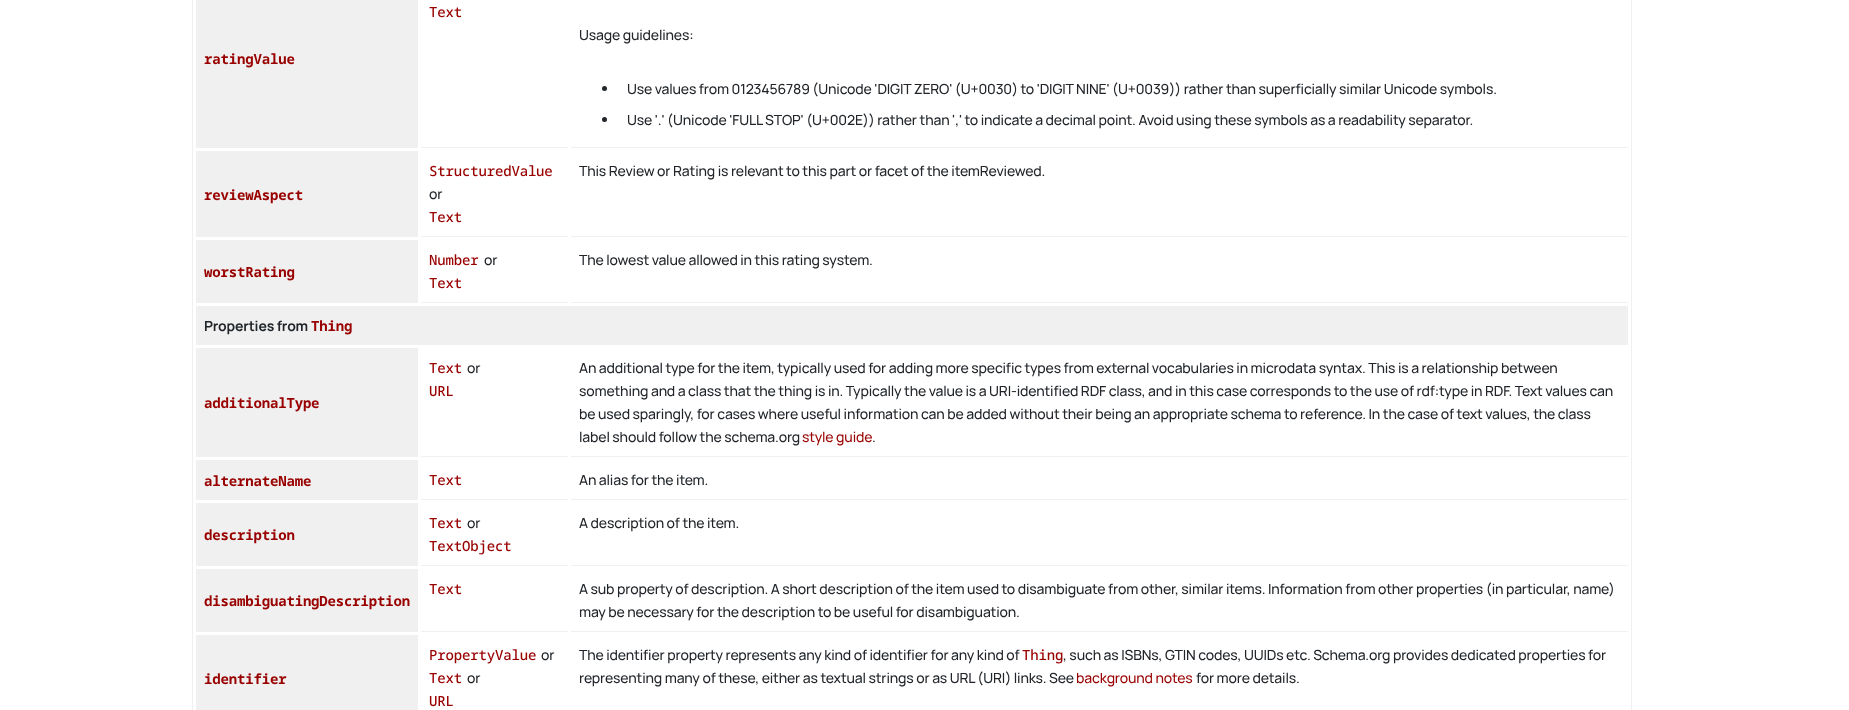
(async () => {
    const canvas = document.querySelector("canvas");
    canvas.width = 1849;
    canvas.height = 710;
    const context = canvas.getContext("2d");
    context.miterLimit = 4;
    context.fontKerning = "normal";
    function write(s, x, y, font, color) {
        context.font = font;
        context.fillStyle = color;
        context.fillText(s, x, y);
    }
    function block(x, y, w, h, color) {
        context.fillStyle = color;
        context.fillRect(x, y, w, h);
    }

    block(0, 0, 1849, 710, "rgb(255, 255, 255)");
    context.strokeStyle = "rgb(240, 240, 240)";
    context.strokeRect(192.5, -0.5, 1439, 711);
    block(421, 147, 147, 1, "rgb(240, 240, 240)");
    context.letterSpacing = "-0.16px";
    write("Text", 429, 17, "500 14px Noto Sans Mono", "rgb(153, 0, 0)");
    block(196, 0, 222, 148, "rgb(240, 240, 240)");
    write("ratingValue", 204, 64, "bold 14px Noto Sans Mono", "rgb(153, 0, 0)");
    block(571, 147, 1057, 1, "rgb(240, 240, 240)");
    write("Usage guidelines:", 579, 40, "500 14px Manrope", "rgb(33, 37, 41)");
    context.beginPath();
    context.arc(604.5, 88.5, 2.5, 0, Math.PI * 2);
    context.fill();
    write("Use values from 0123456789 (Unicode 'DIGIT ZERO' (U+0030) to 'DIGIT NINE' (U+0039)) rather than superficially similar Unicode symbols.", 627, 94, "500 14px Manrope", "rgb(33, 37, 41)");
    context.beginPath();
    context.arc(604.5, 119.5, 2.5, 0, Math.PI * 2);
    context.fill();
    write("Use '.' (Unicode 'FULL STOP' (U+002E)) rather than ',' to indicate a decimal point. Avoid using these symbols as a readability separator.", 627, 125, "500 14px Manrope", "rgb(33, 37, 41)");
    block(421, 236, 147, 1, "rgb(240, 240, 240)");
    write("StructuredValue", 429, 176, "500 14px Noto Sans Mono", "rgb(153, 0, 0)");
    write("or", 429, 199, "500 14px Manrope", "rgb(33, 37, 41)");
    write("Text", 429, 222, "500 14px Noto Sans Mono", "rgb(153, 0, 0)");
    block(571, 236, 1057, 1, "rgb(240, 240, 240)");
    write("This Review or Rating is relevant to this part or facet of the itemReviewed.", 579, 176, "500 14px Manrope", "rgb(33, 37, 41)");
    block(196, 151, 222, 86, "rgb(240, 240, 240)");
    write("reviewAspect", 204, 200, "bold 14px Noto Sans Mono", "rgb(153, 0, 0)");
    block(421, 302, 147, 1, "rgb(240, 240, 240)");
    write("Number", 429, 265, "500 14px Noto Sans Mono", "rgb(153, 0, 0)");
    write("or", 484, 265, "500 14px Manrope", "rgb(33, 37, 41)");
    write("Text", 429, 288, "500 14px Noto Sans Mono", "rgb(153, 0, 0)");
    block(571, 302, 1057, 1, "rgb(240, 240, 240)");
    write("The lowest value allowed in this rating system.", 579, 265, "500 14px Manrope", "rgb(33, 37, 41)");
    block(196, 240, 222, 63, "rgb(240, 240, 240)");
    write("worstRating", 204, 277, "bold 14px Noto Sans Mono", "rgb(153, 0, 0)");
    block(196, 306, 1432, 39, "rgb(240, 240, 240)");
    write("Properties from", 204, 331, "bold 14px Manrope", "rgb(33, 37, 41)");
    write("Thing", 311, 331, "bold 14px Noto Sans Mono", "rgb(153, 0, 0)");
    block(421, 456, 147, 1, "rgb(240, 240, 240)");
    write("Text", 429, 373, "500 14px Noto Sans Mono", "rgb(153, 0, 0)");
    write("or", 467, 373, "500 14px Manrope", "rgb(33, 37, 41)");
    write("URL", 429, 396, "500 14px Noto Sans Mono", "rgb(153, 0, 0)");
    block(571, 456, 1057, 1, "rgb(240, 240, 240)");
    write("An additional type for the item, typically used for adding more specific types from external vocabularies in microdata syntax. This is a relationship between", 579, 373, "500 14px Manrope", "rgb(33, 37, 41)");
    write("something and a class that the thing is in. Typically the value is a URI-identified RDF class, and in this case corresponds to the use of rdf:type in RDF. Text values can", 579, 396, "500 14px Manrope", "rgb(33, 37, 41)");
    write("be used sparingly, for cases where useful information can be added without their being an appropriate schema to reference. In the case of text values, the class", 579, 419, "500 14px Manrope", "rgb(33, 37, 41)");
    write("label should follow the schema.org", 579, 442, "500 14px Manrope", "rgb(33, 37, 41)");
    write("style guide", 802, 442, "500 14px Manrope", "rgb(153, 0, 0)");
    write(".", 872, 442, "500 14px Manrope", "rgb(33, 37, 41)");
    block(196, 348, 222, 109, "rgb(240, 240, 240)");
    write("additionalType", 204, 408, "bold 14px Noto Sans Mono", "rgb(153, 0, 0)");
    block(196, 460, 222, 40, "rgb(240, 240, 240)");
    write("alternateName", 204, 486, "bold 14px Noto Sans Mono", "rgb(153, 0, 0)");
    block(421, 499, 147, 1, "rgb(240, 240, 240)");
    write("Text", 429, 485, "500 14px Noto Sans Mono", "rgb(153, 0, 0)");
    block(571, 499, 1057, 1, "rgb(240, 240, 240)");
    write("An alias for the item.", 579, 485, "500 14px Manrope", "rgb(33, 37, 41)");
    block(196, 503, 222, 63, "rgb(240, 240, 240)");
    write("description", 204, 540, "bold 14px Noto Sans Mono", "rgb(153, 0, 0)");
    block(421, 565, 147, 1, "rgb(240, 240, 240)");
    write("Text", 429, 528, "500 14px Noto Sans Mono", "rgb(153, 0, 0)");
    write("or", 467, 528, "500 14px Manrope", "rgb(33, 37, 41)");
    write("TextObject", 429, 551, "500 14px Noto Sans Mono", "rgb(153, 0, 0)");
    block(571, 565, 1057, 1, "rgb(240, 240, 240)");
    write("A description of the item.", 579, 528, "500 14px Manrope", "rgb(33, 37, 41)");
    block(421, 631, 147, 1, "rgb(240, 240, 240)");
    write("Text", 429, 594, "500 14px Noto Sans Mono", "rgb(153, 0, 0)");
    block(571, 631, 1057, 1, "rgb(240, 240, 240)");
    write("A sub property of description. A short description of the item used to disambiguate from other, similar items. Information from other properties (in particular, name)", 579, 594, "500 14px Manrope", "rgb(33, 37, 41)");
    write("may be necessary for the description to be useful for disambiguation.", 579, 617, "500 14px Manrope", "rgb(33, 37, 41)");
    block(196, 569, 222, 63, "rgb(240, 240, 240)");
    write("disambiguatingDescription", 204, 606, "bold 14px Noto Sans Mono", "rgb(153, 0, 0)");
    block(196, 635, 222, 75, "rgb(240, 240, 240)");
    write("identifier", 204, 684, "bold 14px Noto Sans Mono", "rgb(153, 0, 0)");
    write("PropertyValue", 429, 660, "500 14px Noto Sans Mono", "rgb(153, 0, 0)");
    write("or", 541, 660, "500 14px Manrope", "rgb(33, 37, 41)");
    write("Text", 429, 683, "500 14px Noto Sans Mono", "rgb(153, 0, 0)");
    write("or", 467, 683, "500 14px Manrope", "rgb(33, 37, 41)");
    write("URL", 429, 706, "500 14px Noto Sans Mono", "rgb(153, 0, 0)");
    write("The identifier property represents any kind of identifier for any kind of", 579, 660, "500 14px Manrope", "rgb(33, 37, 41)");
    write("Thing", 1022, 660, "500 14px Noto Sans Mono", "rgb(153, 0, 0)");
    write(", such as ISBNs, GTIN codes, UUIDs etc. Schema.org provides dedicated properties for", 1063, 660, "500 14px Manrope", "rgb(33, 37, 41)");
    write("representing many of these, either as textual strings or as URL (URI) links. See", 579, 683, "500 14px Manrope", "rgb(33, 37, 41)");
    write("background notes", 1076, 683, "500 14px Manrope", "rgb(153, 0, 0)");
    write("for more details.", 1196, 683, "500 14px Manrope", "rgb(33, 37, 41)");
})();
